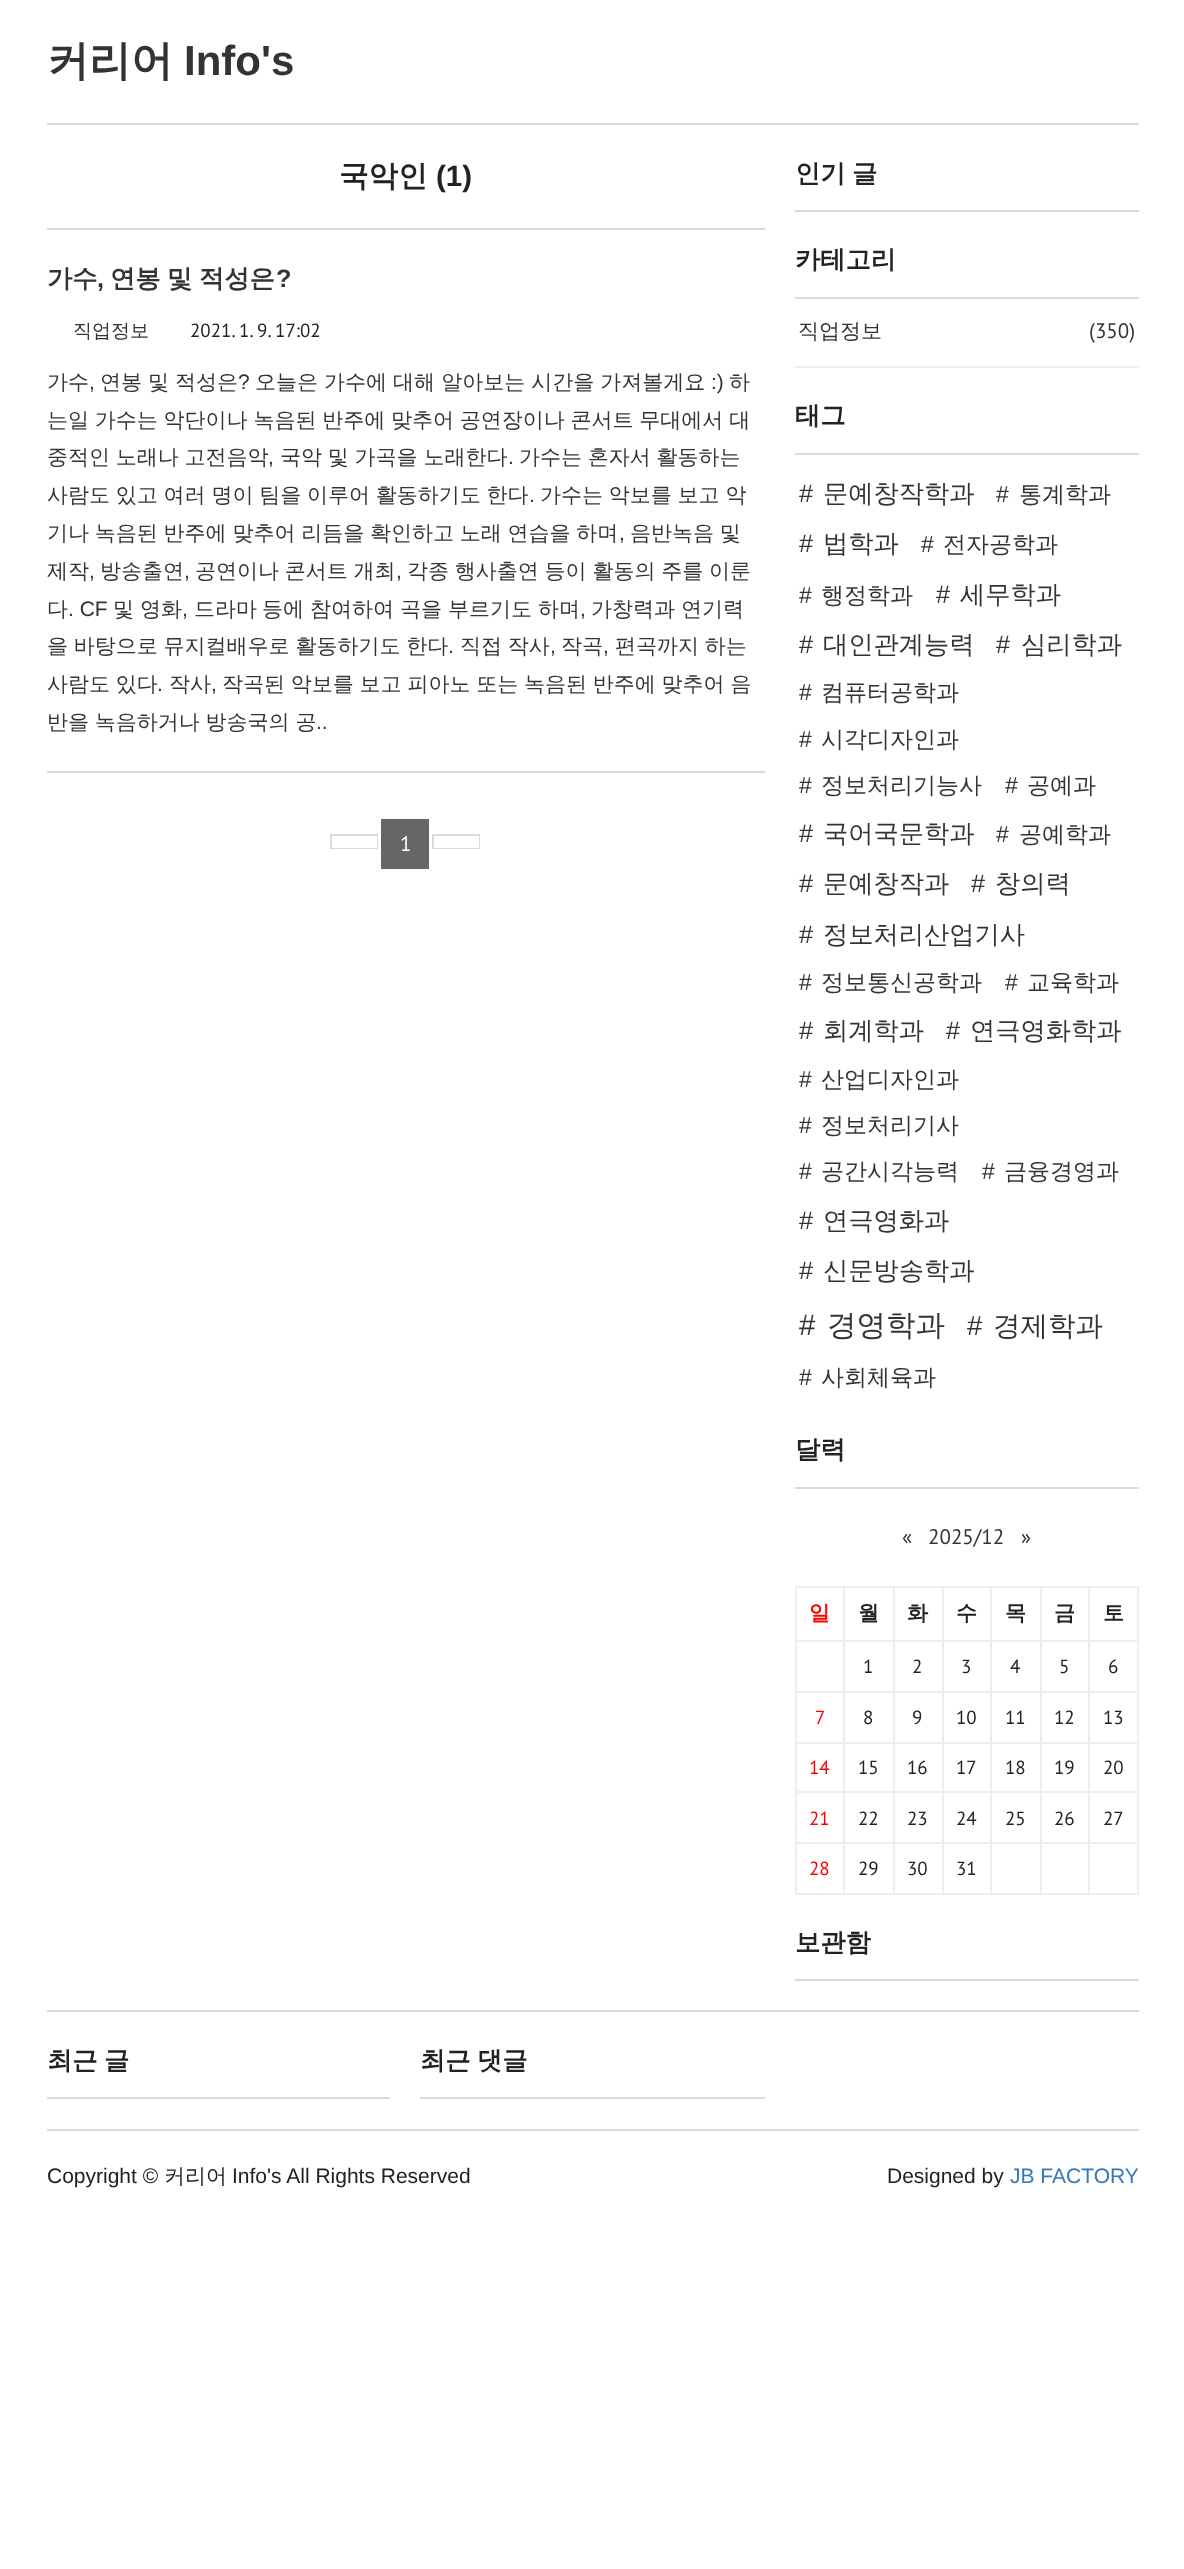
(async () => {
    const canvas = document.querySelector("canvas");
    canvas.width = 1184;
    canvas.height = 2569;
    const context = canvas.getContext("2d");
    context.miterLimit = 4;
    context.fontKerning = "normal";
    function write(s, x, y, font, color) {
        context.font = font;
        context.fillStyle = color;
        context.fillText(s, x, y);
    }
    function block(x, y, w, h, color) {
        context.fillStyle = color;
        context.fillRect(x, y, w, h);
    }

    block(0, 0, 1184, 2569, "rgb(255, 255, 255)");
    write("커리어", 47, 75, "bold 42px WenQuanYi Zen Hei", "rgb(51, 51, 51)");
    write("Info's", 184, 75, "bold 42px Liberation Sans", "rgb(51, 51, 51)");
    block(47, 123, 1092, 2, "rgb(218, 218, 218)");
    block(47, 228, 718, 2, "rgb(218, 218, 218)");
    write("국악인", 339, 186, "bold 29.5px WenQuanYi Zen Hei", "rgb(34, 34, 34)");
    write("(1)", 436, 186, "bold 29.5px Liberation Sans", "rgb(34, 34, 34)");
    block(47, 771, 718, 2, "rgb(218, 218, 218)");
    write("가수", 47, 287, "bold 25.25px WenQuanYi Zen Hei", "rgb(51, 51, 51)");
    write(",", 97, 287, "bold 25.25px Liberation Sans", "rgb(51, 51, 51)");
    context.wordSpacing = "-1px";
    write("연봉 및 적성은", 110, 287, "bold 25.25px WenQuanYi Zen Hei", "rgb(51, 51, 51)");
    context.wordSpacing = "0px";
    write("?", 276, 287, "bold 25.25px Liberation Sans", "rgb(51, 51, 51)");
    write("직업정보", 73, 337, "500 19px WenQuanYi Zen Hei", "rgb(51, 51, 51)");
    write("2021. 1. 9. 17:02", 190, 337, "19px PT Sans", "rgb(34, 34, 34)");
    write("가수", 47, 389, "500 21px WenQuanYi Zen Hei", "rgb(51, 51, 51)");
    write(",", 89, 389, "21px Liberation Sans", "rgb(51, 51, 51)");
    context.wordSpacing = "-0.25px";
    write("연봉 및 적성은", 100, 389, "500 21px WenQuanYi Zen Hei", "rgb(51, 51, 51)");
    context.wordSpacing = "0px";
    write("?", 238, 389, "21px Liberation Sans", "rgb(51, 51, 51)");
    context.wordSpacing = "-0.25px";
    write("오늘은 가수에 대해 알아보는 시간을 가져볼게요", 255, 389, "500 21px WenQuanYi Zen Hei", "rgb(51, 51, 51)");
    context.wordSpacing = "0px";
    write(":)", 711, 389, "21px Liberation Sans", "rgb(51, 51, 51)");
    write("하", 729, 389, "500 21px WenQuanYi Zen Hei", "rgb(51, 51, 51)");
    context.wordSpacing = "-0.5px";
    write("는일 가수는 악단이나 녹음된 반주에 맞추어 공연장이나 콘서트 무대에서 대", 47, 427, "500 21px WenQuanYi Zen Hei", "rgb(51, 51, 51)");
    write("중적인 노래나 고전음악", 47, 464, "500 21px WenQuanYi Zen Hei", "rgb(51, 51, 51)");
    context.wordSpacing = "0px";
    write(",", 268, 464, "21px Liberation Sans", "rgb(51, 51, 51)");
    context.wordSpacing = "-0.5px";
    write("국악 및 가곡을 노래한다", 280, 464, "500 21px WenQuanYi Zen Hei", "rgb(51, 51, 51)");
    context.wordSpacing = "0px";
    write(".", 508, 464, "21px Liberation Sans", "rgb(51, 51, 51)");
    context.wordSpacing = "-0.5px";
    write("가수는 혼자서 활동하는", 519, 464, "500 21px WenQuanYi Zen Hei", "rgb(51, 51, 51)");
    write("사람도 있고 여러 명이 팀을 이루어 활동하기도 한다", 47, 502, "500 21px WenQuanYi Zen Hei", "rgb(51, 51, 51)");
    context.wordSpacing = "0px";
    write(".", 529, 502, "21px Liberation Sans", "rgb(51, 51, 51)");
    context.wordSpacing = "-0.5px";
    write("가수는 악보를 보고 악", 540, 502, "500 21px WenQuanYi Zen Hei", "rgb(51, 51, 51)");
    write("기나 녹음된 반주에 맞추어 리듬을 확인하고 노래 연습을 하며", 47, 540, "500 21px WenQuanYi Zen Hei", "rgb(51, 51, 51)");
    context.wordSpacing = "0px";
    write(",", 619, 540, "21px Liberation Sans", "rgb(51, 51, 51)");
    context.wordSpacing = "-0.5px";
    write("음반녹음 및", 630, 540, "500 21px WenQuanYi Zen Hei", "rgb(51, 51, 51)");
    context.wordSpacing = "0px";
    write("제작", 47, 578, "500 21px WenQuanYi Zen Hei", "rgb(51, 51, 51)");
    write(",", 89, 578, "21px Liberation Sans", "rgb(51, 51, 51)");
    write("방송출연", 100, 578, "500 21px WenQuanYi Zen Hei", "rgb(51, 51, 51)");
    write(",", 184, 578, "21px Liberation Sans", "rgb(51, 51, 51)");
    context.wordSpacing = "-0.5px";
    write("공연이나 콘서트 개최", 195, 578, "500 21px WenQuanYi Zen Hei", "rgb(51, 51, 51)");
    context.wordSpacing = "0px";
    write(",", 396, 578, "21px Liberation Sans", "rgb(51, 51, 51)");
    context.wordSpacing = "-0.5px";
    write("각종 행사출연 등이 활동의 주를 이룬", 407, 578, "500 21px WenQuanYi Zen Hei", "rgb(51, 51, 51)");
    context.wordSpacing = "0px";
    write("다", 47, 616, "500 21px WenQuanYi Zen Hei", "rgb(51, 51, 51)");
    write(". CF", 68, 616, "21px Liberation Sans", "rgb(51, 51, 51)");
    write("및", 113, 616, "500 21px WenQuanYi Zen Hei", "rgb(51, 51, 51)");
    write("영화", 140, 616, "500 21px WenQuanYi Zen Hei", "rgb(51, 51, 51)");
    write(",", 182, 616, "21px Liberation Sans", "rgb(51, 51, 51)");
    write("드라마", 194, 616, "500 21px WenQuanYi Zen Hei", "rgb(51, 51, 51)");
    write("등에", 262, 616, "500 21px WenQuanYi Zen Hei", "rgb(51, 51, 51)");
    write("참여하여", 310, 616, "500 21px WenQuanYi Zen Hei", "rgb(51, 51, 51)");
    write("곡을", 400, 616, "500 21px WenQuanYi Zen Hei", "rgb(51, 51, 51)");
    write("부르기도", 448, 616, "500 21px WenQuanYi Zen Hei", "rgb(51, 51, 51)");
    write("하며", 538, 616, "500 21px WenQuanYi Zen Hei", "rgb(51, 51, 51)");
    write(",", 580, 616, "21px Liberation Sans", "rgb(51, 51, 51)");
    write("가창력과", 591, 616, "500 21px WenQuanYi Zen Hei", "rgb(51, 51, 51)");
    write("연기력", 681, 616, "500 21px WenQuanYi Zen Hei", "rgb(51, 51, 51)");
    context.wordSpacing = "-0.5px";
    write("을 바탕으로 뮤지컬배우로 활동하기도 한다", 47, 653, "500 21px WenQuanYi Zen Hei", "rgb(51, 51, 51)");
    context.wordSpacing = "0px";
    write(".", 448, 653, "21px Liberation Sans", "rgb(51, 51, 51)");
    context.wordSpacing = "-0.5px";
    write("직접 작사", 460, 653, "500 21px WenQuanYi Zen Hei", "rgb(51, 51, 51)");
    context.wordSpacing = "0px";
    write(",", 550, 653, "21px Liberation Sans", "rgb(51, 51, 51)");
    write("작곡", 561, 653, "500 21px WenQuanYi Zen Hei", "rgb(51, 51, 51)");
    write(",", 603, 653, "21px Liberation Sans", "rgb(51, 51, 51)");
    context.wordSpacing = "-0.5px";
    write("편곡까지 하는", 615, 653, "500 21px WenQuanYi Zen Hei", "rgb(51, 51, 51)");
    write("사람도 있다", 47, 691, "500 21px WenQuanYi Zen Hei", "rgb(51, 51, 51)");
    context.wordSpacing = "0px";
    write(".", 157, 691, "21px Liberation Sans", "rgb(51, 51, 51)");
    write("작사", 169, 691, "500 21px WenQuanYi Zen Hei", "rgb(51, 51, 51)");
    write(",", 211, 691, "21px Liberation Sans", "rgb(51, 51, 51)");
    context.wordSpacing = "-0.5px";
    write("작곡된 악보를 보고 피아노 또는 녹음된 반주에 맞추어 음", 222, 691, "500 21px WenQuanYi Zen Hei", "rgb(51, 51, 51)");
    write("반을 녹음하거나 방송국의 공", 47, 729, "500 21px WenQuanYi Zen Hei", "rgb(51, 51, 51)");
    context.wordSpacing = "0px";
    write("..", 316, 729, "21px Liberation Sans", "rgb(51, 51, 51)");
    context.strokeStyle = "rgb(218, 218, 218)";
    context.lineWidth = 2;
    context.strokeRect(331, 835, 46, 13);
    block(332, 836, 45, 12, "rgb(255, 255, 255)");
    context.strokeStyle = "rgb(102, 102, 102)";
    context.strokeRect(382, 820, 46, 48);
    block(383, 821, 44, 46, "rgb(102, 102, 102)");
    write("1", 400, 851, "21px PT Sans", "rgb(255, 255, 255)");
    context.strokeStyle = "rgb(218, 218, 218)";
    context.strokeRect(433, 835, 46, 13);
    block(434, 836, 45, 12, "rgb(255, 255, 255)");
    block(795, 210, 344, 2, "rgb(218, 218, 218)");
    context.wordSpacing = "-1px";
    write("인기 글", 795, 182, "bold 25.25px WenQuanYi Zen Hei", "rgb(34, 34, 34)");
    block(795, 297, 344, 2, "rgb(218, 218, 218)");
    context.wordSpacing = "0px";
    write("카테고리", 795, 268, "bold 25.25px WenQuanYi Zen Hei", "rgb(34, 34, 34)");
    block(795, 366, 344, 2, "rgb(238, 238, 238)");
    write("직업정보", 798, 338, "500 21px WenQuanYi Zen Hei", "rgb(51, 51, 51)");
    write("(350)", 1089, 338, "21px PT Sans", "rgb(51, 51, 51)");
    block(795, 453, 344, 2, "rgb(218, 218, 218)");
    write("태그", 795, 424, "bold 25.25px WenQuanYi Zen Hei", "rgb(34, 34, 34)");
    write("#", 799, 502, "25.25px Liberation Sans", "rgb(51, 51, 51)");
    write("문예창작학과", 823, 502, "500 25.25px WenQuanYi Zen Hei", "rgb(51, 51, 51)");
    write("#", 996, 502, "23px Liberation Sans", "rgb(51, 51, 51)");
    write("통계학과", 1019, 502, "500 23px WenQuanYi Zen Hei", "rgb(51, 51, 51)");
    write("#", 799, 552, "25.25px Liberation Sans", "rgb(51, 51, 51)");
    write("법학과", 823, 552, "500 25.25px WenQuanYi Zen Hei", "rgb(51, 51, 51)");
    write("#", 921, 552, "23px Liberation Sans", "rgb(51, 51, 51)");
    write("전자공학과", 943, 552, "500 23px WenQuanYi Zen Hei", "rgb(51, 51, 51)");
    write("#", 799, 603, "23px Liberation Sans", "rgb(51, 51, 51)");
    write("행정학과", 821, 603, "500 23px WenQuanYi Zen Hei", "rgb(51, 51, 51)");
    write("#", 936, 603, "25.25px Liberation Sans", "rgb(51, 51, 51)");
    write("세무학과", 960, 603, "500 25.25px WenQuanYi Zen Hei", "rgb(51, 51, 51)");
    write("#", 799, 653, "25.25px Liberation Sans", "rgb(51, 51, 51)");
    write("대인관계능력", 823, 653, "500 25.25px WenQuanYi Zen Hei", "rgb(51, 51, 51)");
    write("#", 996, 653, "25.25px Liberation Sans", "rgb(51, 51, 51)");
    write("심리학과", 1021, 653, "500 25.25px WenQuanYi Zen Hei", "rgb(51, 51, 51)");
    write("#", 799, 700, "23px Liberation Sans", "rgb(51, 51, 51)");
    write("컴퓨터공학과", 821, 700, "500 23px WenQuanYi Zen Hei", "rgb(51, 51, 51)");
    write("#", 799, 747, "23px Liberation Sans", "rgb(51, 51, 51)");
    write("시각디자인과", 821, 747, "500 23px WenQuanYi Zen Hei", "rgb(51, 51, 51)");
    write("#", 799, 793, "23px Liberation Sans", "rgb(51, 51, 51)");
    write("정보처리기능사", 821, 793, "500 23px WenQuanYi Zen Hei", "rgb(51, 51, 51)");
    write("#", 1005, 793, "23px Liberation Sans", "rgb(51, 51, 51)");
    write("공예과", 1027, 793, "500 23px WenQuanYi Zen Hei", "rgb(51, 51, 51)");
    write("#", 799, 842, "25.25px Liberation Sans", "rgb(51, 51, 51)");
    write("국어국문학과", 823, 842, "500 25.25px WenQuanYi Zen Hei", "rgb(51, 51, 51)");
    write("#", 996, 842, "23px Liberation Sans", "rgb(51, 51, 51)");
    write("공예학과", 1019, 842, "500 23px WenQuanYi Zen Hei", "rgb(51, 51, 51)");
    write("#", 799, 892, "25.25px Liberation Sans", "rgb(51, 51, 51)");
    write("문예창작과", 823, 892, "500 25.25px WenQuanYi Zen Hei", "rgb(51, 51, 51)");
    write("#", 971, 892, "25.25px Liberation Sans", "rgb(51, 51, 51)");
    write("창의력", 995, 892, "500 25.25px WenQuanYi Zen Hei", "rgb(51, 51, 51)");
    write("#", 799, 943, "25.25px Liberation Sans", "rgb(51, 51, 51)");
    write("정보처리산업기사", 823, 943, "500 25.25px WenQuanYi Zen Hei", "rgb(51, 51, 51)");
    write("#", 799, 990, "23px Liberation Sans", "rgb(51, 51, 51)");
    write("정보통신공학과", 821, 990, "500 23px WenQuanYi Zen Hei", "rgb(51, 51, 51)");
    write("#", 1005, 990, "23px Liberation Sans", "rgb(51, 51, 51)");
    write("교육학과", 1027, 990, "500 23px WenQuanYi Zen Hei", "rgb(51, 51, 51)");
    write("#", 799, 1039, "25.25px Liberation Sans", "rgb(51, 51, 51)");
    write("회계학과", 823, 1039, "500 25.25px WenQuanYi Zen Hei", "rgb(51, 51, 51)");
    write("#", 946, 1039, "25.25px Liberation Sans", "rgb(51, 51, 51)");
    write("연극영화학과", 970, 1039, "500 25.25px WenQuanYi Zen Hei", "rgb(51, 51, 51)");
    write("#", 799, 1087, "23px Liberation Sans", "rgb(51, 51, 51)");
    write("산업디자인과", 821, 1087, "500 23px WenQuanYi Zen Hei", "rgb(51, 51, 51)");
    write("#", 799, 1133, "23px Liberation Sans", "rgb(51, 51, 51)");
    write("정보처리기사", 821, 1133, "500 23px WenQuanYi Zen Hei", "rgb(51, 51, 51)");
    write("#", 799, 1179, "23px Liberation Sans", "rgb(51, 51, 51)");
    write("공간시각능력", 821, 1179, "500 23px WenQuanYi Zen Hei", "rgb(51, 51, 51)");
    write("#", 982, 1179, "23px Liberation Sans", "rgb(51, 51, 51)");
    write("금융경영과", 1004, 1179, "500 23px WenQuanYi Zen Hei", "rgb(51, 51, 51)");
    write("#", 799, 1229, "25.25px Liberation Sans", "rgb(51, 51, 51)");
    write("연극영화과", 823, 1229, "500 25.25px WenQuanYi Zen Hei", "rgb(51, 51, 51)");
    write("#", 799, 1279, "25.25px Liberation Sans", "rgb(51, 51, 51)");
    write("신문방송학과", 823, 1279, "500 25.25px WenQuanYi Zen Hei", "rgb(51, 51, 51)");
    write("#", 799, 1335, "29.5px Liberation Sans", "rgb(51, 51, 51)");
    write("경영학과", 827, 1335, "500 29.5px WenQuanYi Zen Hei", "rgb(51, 51, 51)");
    write("#", 967, 1335, "27.5px Liberation Sans", "rgb(51, 51, 51)");
    write("경제학과", 993, 1335, "500 27.5px WenQuanYi Zen Hei", "rgb(51, 51, 51)");
    write("#", 799, 1385, "23px Liberation Sans", "rgb(51, 51, 51)");
    write("사회체육과", 821, 1385, "500 23px WenQuanYi Zen Hei", "rgb(51, 51, 51)");
    block(795, 1487, 344, 2, "rgb(218, 218, 218)");
    write("달력", 795, 1458, "bold 25.25px WenQuanYi Zen Hei", "rgb(34, 34, 34)");
    write("«", 902, 1544, "21px PT Sans", "rgb(51, 51, 51)");
    write("2025/12", 928, 1544, "21px PT Sans", "rgb(51, 51, 51)");
    write("»", 1021, 1544, "21px PT Sans", "rgb(51, 51, 51)");
    block(1088, 1586, 51, 2, "rgb(238, 238, 238)");
    block(1088, 1640, 51, 2, "rgb(238, 238, 238)");
    block(1088, 1691, 51, 2, "rgb(238, 238, 238)");
    block(1088, 1742, 51, 2, "rgb(238, 238, 238)");
    block(1088, 1791, 51, 2, "rgb(238, 238, 238)");
    block(1088, 1842, 51, 2, "rgb(238, 238, 238)");
    block(1137, 1842, 2, 53, "rgb(238, 238, 238)");
    block(1088, 1893, 51, 2, "rgb(238, 238, 238)");
    block(1088, 1842, 2, 53, "rgb(238, 238, 238)");
    block(1040, 1842, 49, 2, "rgb(238, 238, 238)");
    block(1088, 1791, 2, 53, "rgb(238, 238, 238)");
    block(1040, 1791, 49, 2, "rgb(238, 238, 238)");
    block(1088, 1742, 2, 51, "rgb(238, 238, 238)");
    block(1040, 1742, 49, 2, "rgb(238, 238, 238)");
    block(1088, 1691, 2, 52, "rgb(238, 238, 238)");
    block(1040, 1691, 49, 2, "rgb(238, 238, 238)");
    block(1088, 1640, 2, 52, "rgb(238, 238, 238)");
    block(1040, 1640, 49, 2, "rgb(238, 238, 238)");
    block(1088, 1586, 2, 55, "rgb(238, 238, 238)");
    block(1040, 1586, 49, 2, "rgb(238, 238, 238)");
    block(1040, 1893, 49, 2, "rgb(238, 238, 238)");
    block(1040, 1842, 2, 53, "rgb(238, 238, 238)");
    block(990, 1842, 51, 2, "rgb(238, 238, 238)");
    block(1040, 1791, 2, 53, "rgb(238, 238, 238)");
    block(990, 1791, 51, 2, "rgb(238, 238, 238)");
    block(1040, 1742, 2, 51, "rgb(238, 238, 238)");
    block(990, 1742, 51, 2, "rgb(238, 238, 238)");
    block(1040, 1691, 2, 52, "rgb(238, 238, 238)");
    block(990, 1691, 51, 2, "rgb(238, 238, 238)");
    block(1040, 1640, 2, 52, "rgb(238, 238, 238)");
    block(990, 1640, 51, 2, "rgb(238, 238, 238)");
    block(1040, 1586, 2, 55, "rgb(238, 238, 238)");
    block(990, 1586, 51, 2, "rgb(238, 238, 238)");
    block(990, 1893, 51, 2, "rgb(238, 238, 238)");
    block(990, 1842, 2, 53, "rgb(238, 238, 238)");
    block(942, 1842, 50, 2, "rgb(238, 238, 238)");
    block(990, 1791, 2, 53, "rgb(238, 238, 238)");
    block(942, 1791, 50, 2, "rgb(238, 238, 238)");
    block(990, 1742, 2, 51, "rgb(238, 238, 238)");
    block(942, 1742, 50, 2, "rgb(238, 238, 238)");
    block(990, 1691, 2, 52, "rgb(238, 238, 238)");
    block(942, 1691, 50, 2, "rgb(238, 238, 238)");
    block(990, 1640, 2, 52, "rgb(238, 238, 238)");
    block(942, 1640, 50, 2, "rgb(238, 238, 238)");
    block(990, 1586, 2, 55, "rgb(238, 238, 238)");
    block(942, 1586, 50, 2, "rgb(238, 238, 238)");
    block(942, 1893, 50, 2, "rgb(238, 238, 238)");
    block(942, 1842, 2, 53, "rgb(238, 238, 238)");
    block(893, 1842, 51, 2, "rgb(238, 238, 238)");
    block(942, 1791, 2, 53, "rgb(238, 238, 238)");
    block(893, 1791, 51, 2, "rgb(238, 238, 238)");
    block(942, 1742, 2, 51, "rgb(238, 238, 238)");
    block(893, 1742, 51, 2, "rgb(238, 238, 238)");
    block(942, 1691, 2, 52, "rgb(238, 238, 238)");
    block(893, 1691, 51, 2, "rgb(238, 238, 238)");
    block(942, 1640, 2, 52, "rgb(238, 238, 238)");
    block(893, 1640, 51, 2, "rgb(238, 238, 238)");
    block(942, 1586, 2, 55, "rgb(238, 238, 238)");
    block(893, 1586, 51, 2, "rgb(238, 238, 238)");
    block(893, 1893, 51, 2, "rgb(238, 238, 238)");
    block(893, 1842, 2, 53, "rgb(238, 238, 238)");
    block(843, 1842, 51, 2, "rgb(238, 238, 238)");
    block(893, 1791, 2, 53, "rgb(238, 238, 238)");
    block(843, 1791, 51, 2, "rgb(238, 238, 238)");
    block(893, 1742, 2, 51, "rgb(238, 238, 238)");
    block(843, 1742, 51, 2, "rgb(238, 238, 238)");
    block(893, 1691, 2, 52, "rgb(238, 238, 238)");
    block(843, 1691, 51, 2, "rgb(238, 238, 238)");
    block(893, 1640, 2, 52, "rgb(238, 238, 238)");
    block(843, 1640, 51, 2, "rgb(238, 238, 238)");
    block(893, 1586, 2, 55, "rgb(238, 238, 238)");
    block(843, 1586, 51, 2, "rgb(238, 238, 238)");
    block(843, 1893, 51, 2, "rgb(238, 238, 238)");
    block(843, 1842, 2, 53, "rgb(238, 238, 238)");
    block(795, 1842, 50, 2, "rgb(238, 238, 238)");
    block(843, 1791, 2, 53, "rgb(238, 238, 238)");
    block(795, 1791, 50, 2, "rgb(238, 238, 238)");
    block(843, 1742, 2, 51, "rgb(238, 238, 238)");
    block(795, 1742, 50, 2, "rgb(238, 238, 238)");
    block(843, 1691, 2, 52, "rgb(238, 238, 238)");
    block(795, 1691, 50, 2, "rgb(238, 238, 238)");
    block(843, 1640, 2, 52, "rgb(238, 238, 238)");
    block(795, 1640, 50, 2, "rgb(238, 238, 238)");
    block(843, 1586, 2, 55, "rgb(238, 238, 238)");
    block(795, 1586, 50, 2, "rgb(238, 238, 238)");
    block(795, 1893, 50, 2, "rgb(238, 238, 238)");
    block(795, 1842, 2, 53, "rgb(238, 238, 238)");
    block(795, 1791, 2, 53, "rgb(238, 238, 238)");
    block(795, 1742, 2, 51, "rgb(238, 238, 238)");
    block(795, 1691, 2, 52, "rgb(238, 238, 238)");
    block(795, 1640, 2, 52, "rgb(238, 238, 238)");
    block(795, 1586, 2, 55, "rgb(238, 238, 238)");
    write("일", 809, 1620, "bold 21px WenQuanYi Zen Hei", "rgb(255, 0, 0)");
    write("월", 858, 1620, "bold 21px WenQuanYi Zen Hei", "rgb(34, 34, 34)");
    write("화", 907, 1620, "bold 21px WenQuanYi Zen Hei", "rgb(34, 34, 34)");
    write("수", 956, 1620, "bold 21px WenQuanYi Zen Hei", "rgb(34, 34, 34)");
    write("목", 1005, 1620, "bold 21px WenQuanYi Zen Hei", "rgb(34, 34, 34)");
    write("금", 1054, 1620, "bold 21px WenQuanYi Zen Hei", "rgb(34, 34, 34)");
    block(1137, 1791, 2, 53, "rgb(238, 238, 238)");
    block(1137, 1742, 2, 51, "rgb(238, 238, 238)");
    block(1137, 1691, 2, 52, "rgb(238, 238, 238)");
    block(1137, 1640, 2, 52, "rgb(238, 238, 238)");
    block(1137, 1586, 2, 55, "rgb(238, 238, 238)");
    write("토", 1103, 1620, "bold 21px WenQuanYi Zen Hei", "rgb(34, 34, 34)");
    write("1", 863, 1673, "19px PT Sans", "rgb(34, 34, 34)");
    write("2", 912, 1673, "19px PT Sans", "rgb(34, 34, 34)");
    write("3", 961, 1673, "19px PT Sans", "rgb(34, 34, 34)");
    write("4", 1010, 1673, "19px PT Sans", "rgb(34, 34, 34)");
    write("5", 1059, 1673, "19px PT Sans", "rgb(34, 34, 34)");
    write("6", 1108, 1673, "19px PT Sans", "rgb(34, 34, 34)");
    write("7", 815, 1724, "19px PT Sans", "rgb(255, 0, 0)");
    write("8", 863, 1724, "19px PT Sans", "rgb(34, 34, 34)");
    write("9", 912, 1724, "19px PT Sans", "rgb(34, 34, 34)");
    write("10", 956, 1724, "19px PT Sans", "rgb(34, 34, 34)");
    write("11", 1005, 1724, "19px PT Sans", "rgb(34, 34, 34)");
    write("12", 1054, 1724, "19px PT Sans", "rgb(34, 34, 34)");
    write("13", 1103, 1724, "19px PT Sans", "rgb(34, 34, 34)");
    write("14", 809, 1774, "19px PT Sans", "rgb(255, 0, 0)");
    write("15", 858, 1774, "19px PT Sans", "rgb(34, 34, 34)");
    write("16", 907, 1774, "19px PT Sans", "rgb(34, 34, 34)");
    write("17", 956, 1774, "19px PT Sans", "rgb(34, 34, 34)");
    write("18", 1005, 1774, "19px PT Sans", "rgb(34, 34, 34)");
    write("19", 1054, 1774, "19px PT Sans", "rgb(34, 34, 34)");
    write("20", 1103, 1774, "19px PT Sans", "rgb(34, 34, 34)");
    write("21", 809, 1825, "19px PT Sans", "rgb(255, 0, 0)");
    write("22", 858, 1825, "19px PT Sans", "rgb(34, 34, 34)");
    write("23", 907, 1825, "19px PT Sans", "rgb(34, 34, 34)");
    write("24", 956, 1825, "19px PT Sans", "rgb(34, 34, 34)");
    write("25", 1005, 1825, "19px PT Sans", "rgb(34, 34, 34)");
    write("26", 1054, 1825, "19px PT Sans", "rgb(34, 34, 34)");
    write("27", 1103, 1825, "19px PT Sans", "rgb(34, 34, 34)");
    write("28", 809, 1875, "19px PT Sans", "rgb(255, 0, 0)");
    write("29", 858, 1875, "19px PT Sans", "rgb(34, 34, 34)");
    write("30", 907, 1875, "19px PT Sans", "rgb(34, 34, 34)");
    write("31", 956, 1875, "19px PT Sans", "rgb(34, 34, 34)");
    block(795, 1979, 344, 2, "rgb(218, 218, 218)");
    write("보관함", 795, 1951, "bold 25.25px WenQuanYi Zen Hei", "rgb(34, 34, 34)");
    block(47, 2010, 1092, 2, "rgb(218, 218, 218)");
    block(47, 2097, 343, 2, "rgb(218, 218, 218)");
    context.wordSpacing = "-1px";
    write("최근 글", 47, 2069, "bold 25.25px WenQuanYi Zen Hei", "rgb(34, 34, 34)");
    block(420, 2097, 345, 2, "rgb(218, 218, 218)");
    write("최근 댓글", 420, 2069, "bold 25.25px WenQuanYi Zen Hei", "rgb(34, 34, 34)");
    block(47, 2129, 1092, 2, "rgb(218, 218, 218)");
    context.wordSpacing = "0px";
    write("Copyright ©", 47, 2183, "21px Liberation Sans", "rgb(34, 34, 34)");
    write("커리어", 164, 2183, "500 21px WenQuanYi Zen Hei", "rgb(34, 34, 34)");
    write("Info's All Rights Reserved", 232, 2183, "21px Liberation Sans", "rgb(34, 34, 34)");
    write("Designed by", 887, 2183, "21px Liberation Sans", "rgb(34, 34, 34)");
    write("JB FACTORY", 1010, 2183, "21px Liberation Sans", "rgb(51, 122, 183)");
})();
